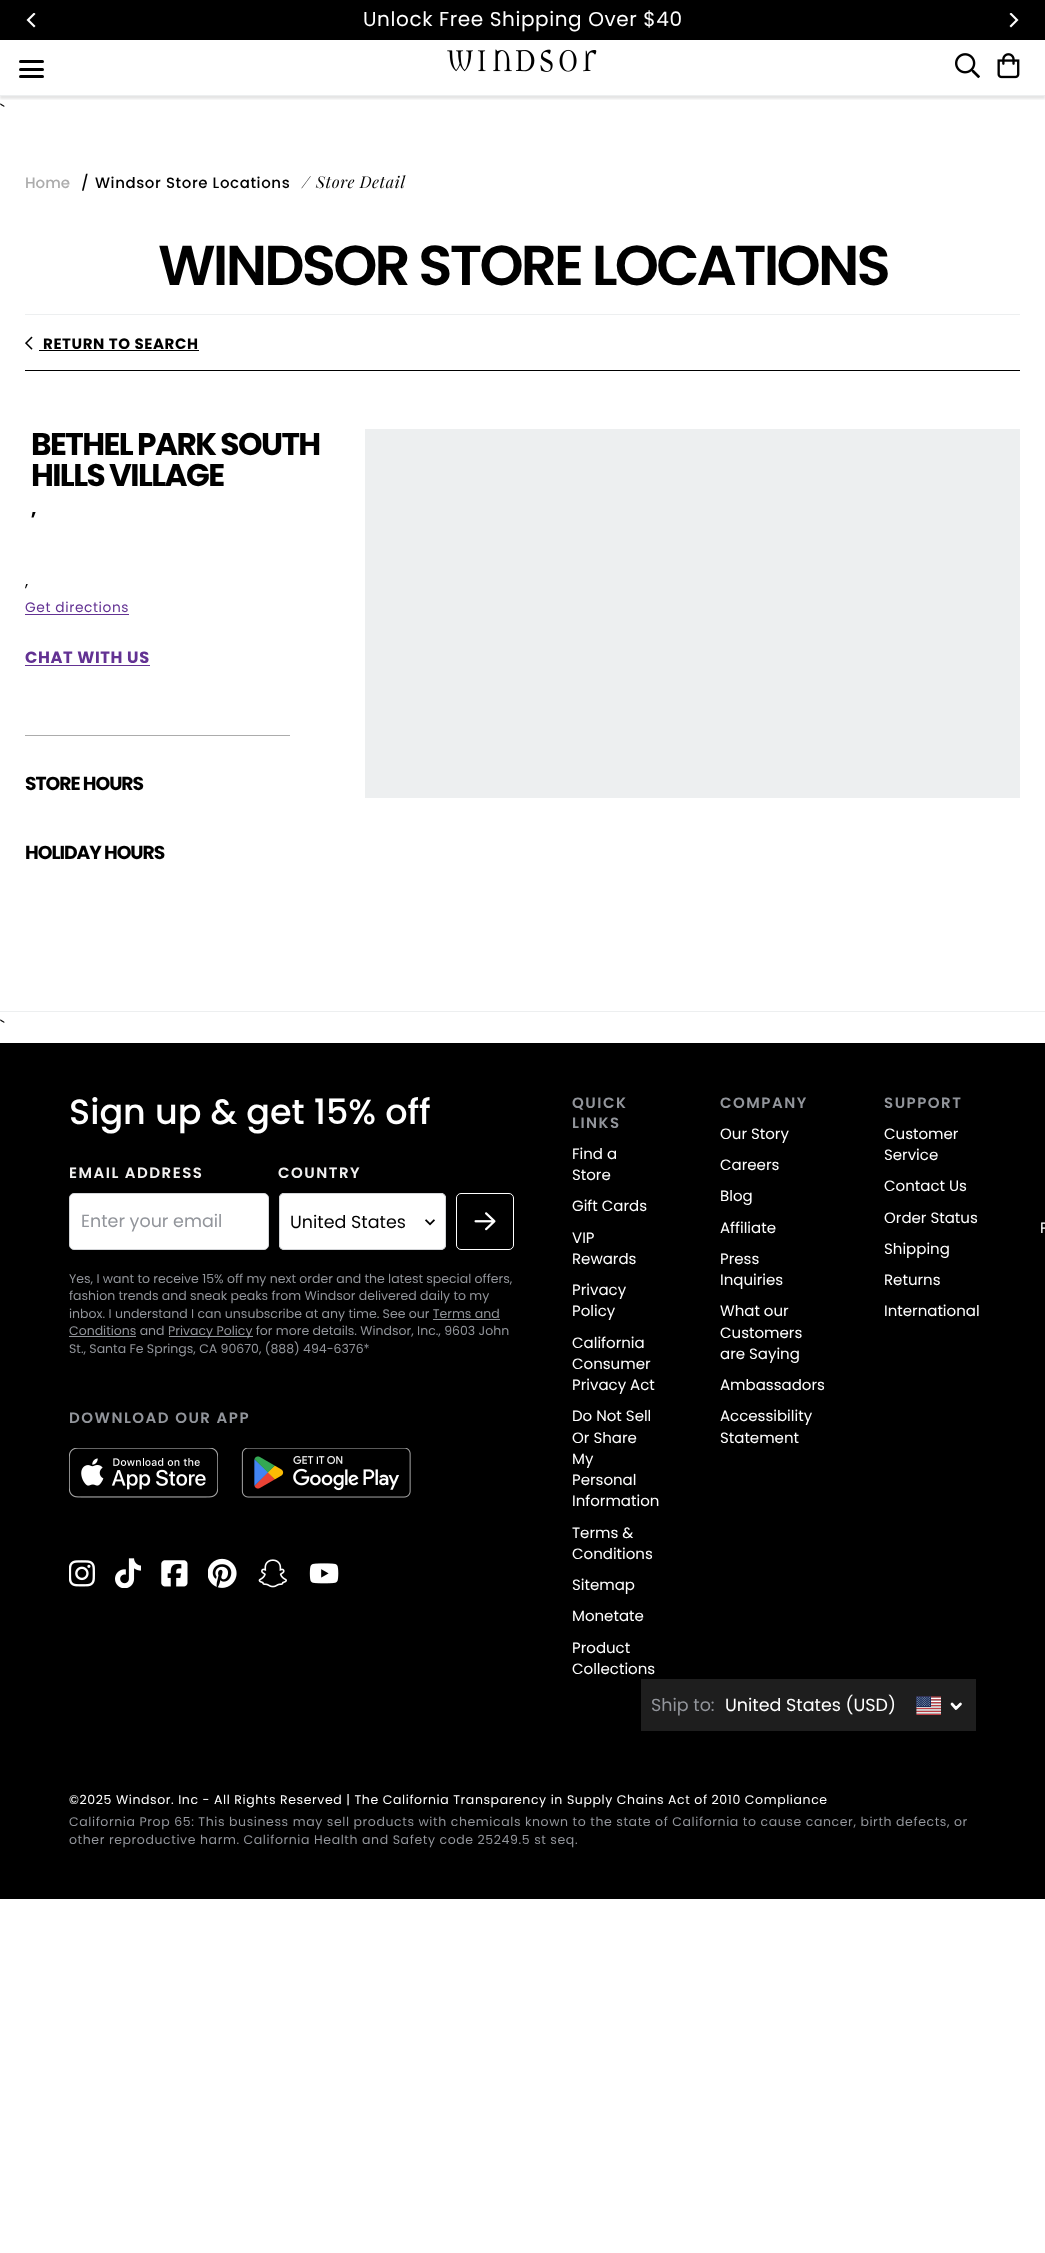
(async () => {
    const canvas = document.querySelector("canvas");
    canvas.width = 1045;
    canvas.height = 2253;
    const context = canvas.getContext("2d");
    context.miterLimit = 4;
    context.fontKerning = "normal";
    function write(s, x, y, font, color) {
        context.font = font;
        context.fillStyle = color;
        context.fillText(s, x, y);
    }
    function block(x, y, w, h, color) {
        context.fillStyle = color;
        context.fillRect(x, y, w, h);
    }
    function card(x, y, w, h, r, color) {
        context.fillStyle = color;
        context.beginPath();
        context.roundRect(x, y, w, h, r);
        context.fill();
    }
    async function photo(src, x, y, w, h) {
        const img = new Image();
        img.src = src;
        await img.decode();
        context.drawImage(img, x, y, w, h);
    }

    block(0, 0, 1045, 2253, "rgb(255, 255, 255)");
    context.save();
    context.beginPath();
    context.rect(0, 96, 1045, 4);
    context.clip();
    context.fillStyle = "rgba(0, 0, 0, 0.1)";
    context.filter = "blur(1px)";
    context.beginPath();
    context.rect(0, 43, 1045, 56);
    context.fill();
    context.filter = "none";
    context.restore();
    block(0, 0, 1045, 40, "rgb(0, 0, 0)");
    await photo("media/1.png", 26, 13, 10, 15);
    context.letterSpacing = "0.6px";
    write("Unlock Free Shipping Over $40", 363, 26, "20px Poppins", "rgb(255, 255, 255)");
    await photo("media/2.png", 1009, 13, 10, 15);
    block(0, 95, 1045, 1, "rgb(237, 239, 240)");
    card(19, 68, 25, 3, 1.5, "rgb(0, 0, 0)");
    card(19, 60, 25, 3, 1.5, "rgb(0, 0, 0)");
    card(19, 75, 25, 3, 1.5, "rgb(0, 0, 0)");
    await photo("media/3.png", 447, 49, 150, 23);
    await photo("media/4.png", 955, 53, 25, 26);
    await photo("media/5.png", 997, 53, 23, 26);
    write("`", 0, 118, "18.75px Poppins", "rgb(0, 0, 0)");
    context.letterSpacing = "0px";
    write("Home", 25, 188, "500 15px Poppins", "rgb(172, 172, 172)");
    context.letterSpacing = "0.6px";
    write("/", 81, 188, "500 15px Poppins", "rgb(0, 0, 0)");
    write("Windsor Store Locations", 95, 188, "500 15px Poppins", "rgb(0, 0, 0)");
    write("/", 302, 188, "italic 16.25px Playfair Display", "rgb(0, 0, 0)");
    write("Store Detail", 316, 188, "italic 16.25px Playfair Display", "rgb(0, 0, 0)");
    block(25, 314, 995, 1, "rgb(237, 239, 240)");
    context.letterSpacing = "-2.8px";
    write("WINDSOR STORE LOCATIONS", 158, 285, "600 56.25px Poppins", "rgb(0, 0, 0)");
    block(0, 1011, 1045, 1, "rgb(237, 239, 240)");
    block(25, 370, 995, 1, "rgb(0, 0, 0)");
    await photo("media/6.png", 25, 336, 8, 14);
    context.letterSpacing = "0.6px";
    write("RETURN TO SEARCH", 43, 349, "bold 15px Poppins", "rgb(0, 0, 0)");
    block(39, 350, 160, 1, "rgb(0, 0, 0)");
    context.letterSpacing = "-1.6px";
    write("BETHEL PARK SOUTH", 31, 455, "bold 31.25px Poppins", "rgb(0, 0, 0)");
    write("HILLS VILLAGE", 31, 486, "bold 31.25px Poppins", "rgb(0, 0, 0)");
    context.letterSpacing = "-1px";
    write(",", 31, 515, "bold 18.75px Poppins", "rgb(0, 0, 0)");
    context.letterSpacing = "0.6px";
    write(",", 25, 586, "16.25px Poppins", "rgb(0, 0, 0)");
    write("Get directions", 25, 612, "13.75px Poppins", "rgb(99, 50, 147)");
    block(25, 614, 104, 1, "rgb(99, 50, 147)");
    write("CHAT WITH US", 25, 663, "bold 16.25px Poppins", "rgb(99, 50, 147)");
    block(25, 665, 125, 1, "rgb(99, 50, 147)");
    block(25, 735, 265, 1, "rgb(172, 172, 172)");
    context.letterSpacing = "-1px";
    write("STORE HOURS", 25, 790, "bold 18.75px Poppins", "rgb(0, 0, 0)");
    write("HOLIDAY HOURS", 25, 859, "bold 18.75px Poppins", "rgb(0, 0, 0)");
    block(365, 429, 655, 369, "rgb(237, 239, 240)");
    context.letterSpacing = "0.6px";
    write("`", 0, 1034, "18.75px Poppins", "rgb(0, 0, 0)");
    block(0, 1043, 1045, 856, "rgb(0, 0, 0)");
    context.letterSpacing = "0px";
    write("Sign up & get 15% off", 69, 1124, "500 35px Poppins", "rgb(255, 255, 255)");
    context.letterSpacing = "1.5px";
    write("EMAIL ADDRESS", 69, 1178, "600 15px Poppins", "rgb(242, 241, 241)");
    context.fillStyle = "rgb(255, 255, 255)";
    context.beginPath();
    context.roundRect(69.5, 1193.5, 199, 56, 4.5);
    context.fill();
    context.strokeStyle = "rgb(211, 213, 216)";
    context.stroke();
    context.letterSpacing = "0px";
    write("Enter your email", 81, 1227, "17.5px Poppins", "rgb(146, 149, 155)");
    context.letterSpacing = "1.5px";
    write("COUNTRY", 278, 1178, "600 15px Poppins", "rgb(242, 241, 241)");
    card(279, 1193, 167, 57, 5, "rgb(255, 255, 255)");
    await photo("media/7.png", 425, 1219, 10, 7);
    context.beginPath();
    context.roundRect(279.5, 1193.5, 166, 56, 4.5);
    context.stroke();
    context.letterSpacing = "0px";
    write("United States", 290, 1228, "17.5px Poppins", "rgb(0, 0, 0)");
    context.beginPath();
    context.roundRect(456.5, 1193.5, 57, 56, 4.5);
    context.strokeStyle = "rgb(255, 255, 255)";
    context.stroke();
    await photo("media/8.png", 474, 1212, 22, 19);
    write("Yes, I want to receive 15% off my next order and the latest special offers,", 69, 1283, "12.5px Poppins", "rgb(146, 149, 155)");
    write("fashion trends and sneak peaks from Windsor delivered daily to my", 69, 1300, "12.5px Poppins", "rgb(146, 149, 155)");
    write("inbox. I understand I can unsubscribe at any time. See our Terms and", 69, 1318, "12.5px Poppins", "rgb(146, 149, 155)");
    write("Conditions and", 69, 1335, "12.5px Poppins", "rgb(146, 149, 155)");
    block(433, 1319, 67, 1, "rgb(146, 149, 155)");
    block(69, 1336, 67, 1, "rgb(146, 149, 155)");
    block(169, 1336, 84, 1, "rgb(146, 149, 155)");
    write("Privacy Policy for more details. Windsor, Inc., 9603 John", 168, 1335, "12.5px Poppins", "rgb(146, 149, 155)");
    write("St., Santa Fe Springs, CA 90670, (888) 494-6376*", 69, 1353, "12.5px Poppins", "rgb(146, 149, 155)");
    context.letterSpacing = "1.5px";
    write("DOWNLOAD OUR APP", 69, 1423, "600 15px Poppins", "rgb(146, 149, 155)");
    await photo("media/9.png", 69, 1448, 149, 50);
    await photo("media/10.png", 241, 1448, 170, 50);
    await photo("media/11.png", 69, 1560, 26, 27);
    await photo("media/12.png", 115, 1558, 26, 30);
    await photo("media/13.png", 161, 1560, 27, 27);
    await photo("media/14.png", 208, 1558, 29, 30);
    await photo("media/15.png", 258, 1559, 29, 29);
    await photo("media/16.png", 309, 1563, 30, 21);
    write("QUICK", 572, 1108, "600 15px Poppins", "rgb(146, 149, 155)");
    write("LINKS", 572, 1128, "600 15px Poppins", "rgb(146, 149, 155)");
    context.letterSpacing = "0px";
    write("Find a", 572, 1159, "15px Poppins", "rgb(255, 255, 255)");
    write("Store", 572, 1180, "15px Poppins", "rgb(255, 255, 255)");
    write("Gift Cards", 572, 1211, "15px Poppins", "rgb(255, 255, 255)");
    write("VIP", 572, 1243, "15px Poppins", "rgb(255, 255, 255)");
    write("Rewards", 572, 1264, "15px Poppins", "rgb(255, 255, 255)");
    write("Privacy", 572, 1295, "15px Poppins", "rgb(255, 255, 255)");
    write("Policy", 572, 1316, "15px Poppins", "rgb(255, 255, 255)");
    write("California", 572, 1348, "15px Poppins", "rgb(255, 255, 255)");
    write("Consumer", 572, 1369, "15px Poppins", "rgb(255, 255, 255)");
    write("Privacy Act", 572, 1390, "15px Poppins", "rgb(255, 255, 255)");
    write("Do Not Sell", 572, 1421, "15px Poppins", "rgb(255, 255, 255)");
    write("Or Share", 572, 1443, "15px Poppins", "rgb(255, 255, 255)");
    write("My", 572, 1464, "15px Poppins", "rgb(255, 255, 255)");
    write("Personal", 572, 1485, "15px Poppins", "rgb(255, 255, 255)");
    write("Information", 572, 1506, "15px Poppins", "rgb(255, 255, 255)");
    write("Terms &", 572, 1538, "15px Poppins", "rgb(255, 255, 255)");
    write("Conditions", 572, 1559, "15px Poppins", "rgb(255, 255, 255)");
    write("Sitemap", 572, 1590, "15px Poppins", "rgb(255, 255, 255)");
    write("Monetate", 572, 1621, "15px Poppins", "rgb(255, 255, 255)");
    write("Product", 572, 1653, "15px Poppins", "rgb(255, 255, 255)");
    write("Collections", 572, 1674, "15px Poppins", "rgb(255, 255, 255)");
    context.letterSpacing = "1.5px";
    write("COMPANY", 720, 1108, "600 15px Poppins", "rgb(146, 149, 155)");
    context.letterSpacing = "0px";
    write("Our Story", 720, 1139, "15px Poppins", "rgb(255, 255, 255)");
    write("Careers", 720, 1170, "15px Poppins", "rgb(255, 255, 255)");
    write("Blog", 720, 1201, "15px Poppins", "rgb(255, 255, 255)");
    write("Affiliate", 720, 1233, "15px Poppins", "rgb(255, 255, 255)");
    write("Press", 720, 1264, "15px Poppins", "rgb(255, 255, 255)");
    write("Inquiries", 720, 1285, "15px Poppins", "rgb(255, 255, 255)");
    write("What our", 720, 1316, "15px Poppins", "rgb(255, 255, 255)");
    write("Customers", 720, 1338, "15px Poppins", "rgb(255, 255, 255)");
    write("are Saying", 720, 1359, "15px Poppins", "rgb(255, 255, 255)");
    write("Ambassadors", 720, 1390, "15px Poppins", "rgb(255, 255, 255)");
    write("Accessibility", 720, 1421, "15px Poppins", "rgb(255, 255, 255)");
    write("Statement", 720, 1443, "15px Poppins", "rgb(255, 255, 255)");
    context.letterSpacing = "1.5px";
    write("SUPPORT", 884, 1108, "600 15px Poppins", "rgb(146, 149, 155)");
    context.letterSpacing = "0px";
    write("Customer", 884, 1139, "15px Poppins", "rgb(255, 255, 255)");
    write("Service", 884, 1160, "15px Poppins", "rgb(255, 255, 255)");
    write("Contact Us", 884, 1191, "15px Poppins", "rgb(255, 255, 255)");
    write("Order Status", 884, 1223, "15px Poppins", "rgb(255, 255, 255)");
    write("Shipping", 884, 1254, "15px Poppins", "rgb(255, 255, 255)");
    write("Returns", 884, 1285, "15px Poppins", "rgb(255, 255, 255)");
    write("International", 884, 1316, "15px Poppins", "rgb(255, 255, 255)");
    write("P", 1040, 1233, "15px Poppins", "rgb(255, 255, 255)");
    block(641, 1679, 335, 52, "rgb(30, 30, 30)");
    write("Ship to:", 651, 1711, "17.5px Poppins", "rgb(146, 149, 155)");
    write("United States (USD)", 725, 1711, "17.5px Poppins", "rgb(255, 255, 255)");
    await photo("media/17.png", 916, 1696, 25, 19);
    context.beginPath();
    context.moveTo(952, 1704);
    context.lineTo(956, 1708.5);
    context.lineTo(960.5, 1704);
    context.lineWidth = 2.7;
    context.lineCap = "round";
    context.lineJoin = "round";
    context.stroke();
    context.letterSpacing = "0.6px";
    write("©2025 Windsor. Inc - All Rights Reserved | The California Transparency in Supply Chains Act of 2010 Compliance", 69, 1804, "12.5px Poppins", "rgb(255, 255, 255)");
    write("California Prop 65: This business may sell products with chemicals known to the state of California to cause cancer, birth defects, or", 69, 1826, "12.5px Poppins", "rgb(146, 149, 155)");
    write("other reproductive harm. California Health and Safety code 25249.5 st seq.", 69, 1844, "12.5px Poppins", "rgb(146, 149, 155)");
})();
